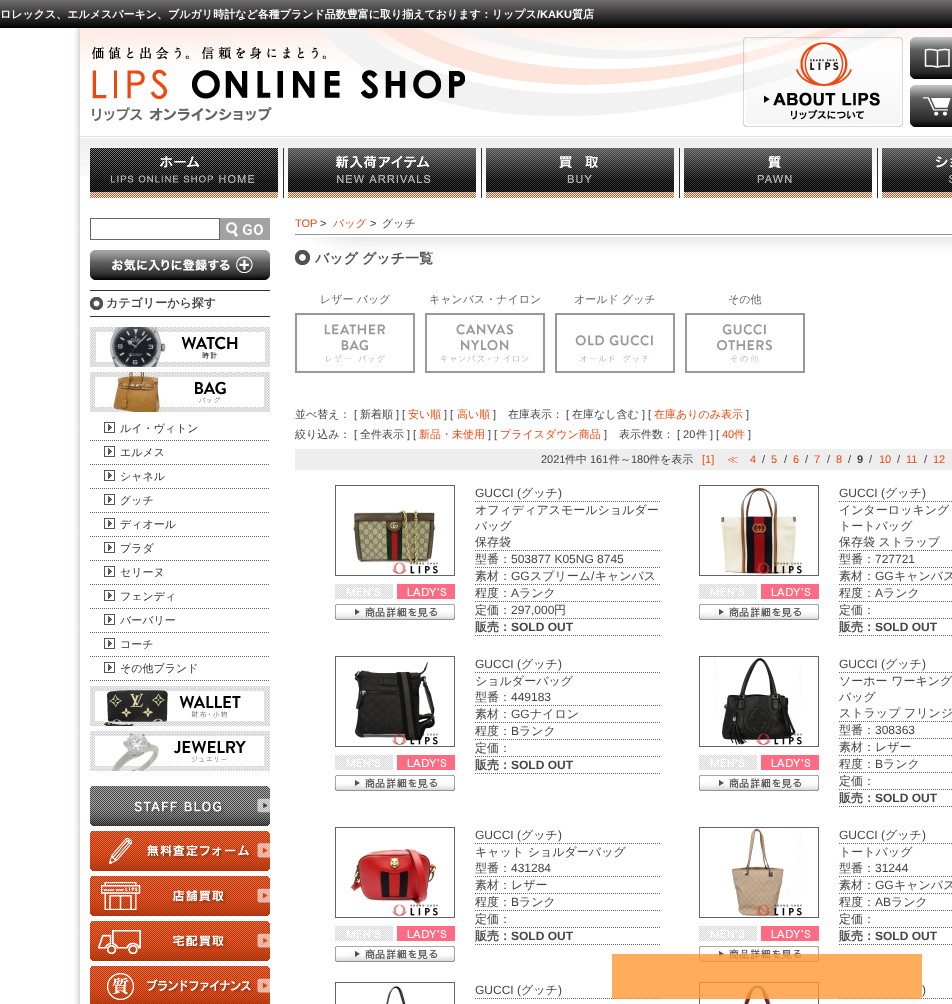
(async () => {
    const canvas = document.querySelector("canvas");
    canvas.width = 952;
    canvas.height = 1004;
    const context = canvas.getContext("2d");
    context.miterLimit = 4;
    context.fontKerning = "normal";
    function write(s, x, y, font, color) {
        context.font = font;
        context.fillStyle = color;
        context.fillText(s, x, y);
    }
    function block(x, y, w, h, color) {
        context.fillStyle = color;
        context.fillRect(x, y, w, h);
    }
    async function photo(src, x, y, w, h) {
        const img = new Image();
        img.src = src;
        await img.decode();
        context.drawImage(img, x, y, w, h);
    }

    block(0, 0, 952, 1004, "rgb(255, 255, 255)");
    await photo("media/1.png", 0, 0, 952, 28);
    write("ロレックス、エルメスバーキン、ブルガリ時計など各種ブランド品数豊富に取り揃えております：リップス", 0, 18, "bold 11px WenQuanYi Zen Hei", "rgb(255, 255, 255)");
    write("/KAKU", 537, 18, "bold 11px Liberation Sans", "rgb(255, 255, 255)");
    write("質店", 572, 18, "bold 11px WenQuanYi Zen Hei", "rgb(255, 255, 255)");
    await photo("media/2.png", 74, 28, 6, 976);
    await photo("media/3.png", 80, 28, 872, 88);
    await photo("media/4.png", 92, 45, 373, 76);
    await photo("media/5.png", 743, 37, 160, 90);
    await photo("media/6.png", 910, 37, 42, 42);
    await photo("media/7.png", 910, 85, 42, 42);
    await photo("media/8.png", 80, 136, 872, 40);
    await photo("media/9.png", 283, 148, 595, 50);
    await photo("media/10.png", 90, 148, 188, 50);
    await photo("media/11.png", 288, 148, 188, 50);
    await photo("media/12.png", 486, 148, 188, 50);
    await photo("media/13.png", 684, 148, 188, 50);
    await photo("media/14.png", 882, 148, 70, 50);
    context.strokeStyle = "rgb(102, 102, 102)";
    context.strokeRect(90.5, 218.5, 129, 21);
    await photo("media/15.png", 220, 218, 50, 22);
    await photo("media/16.png", 90, 250, 180, 30);
    await photo("media/17.png", 90, 297, 13, 13);
    block(90, 290, 180, 1, "rgb(50, 50, 50)");
    block(90, 316, 180, 1, "rgb(50, 50, 50)");
    write("カテゴリーから探す", 106, 307, "bold 12px WenQuanYi Zen Hei", "rgb(68, 68, 68)");
    await photo("media/18.png", 90, 327, 180, 40);
    await photo("media/19.png", 90, 372, 180, 40);
    await photo("media/20.png", 104, 422, 11, 11);
    context.beginPath();
    context.moveTo(90, 440.5);
    context.lineTo(270, 440.5);
    context.strokeStyle = "rgb(100, 100, 100)";
    context.setLineDash([1, 1]);
    context.stroke();
    write("ルイ・ヴィトン", 120, 432, "500 11px WenQuanYi Zen Hei", "rgb(51, 51, 51)");
    await photo("media/20.png", 104, 446, 11, 11);
    context.beginPath();
    context.moveTo(90, 464.5);
    context.lineTo(270, 464.5);
    context.stroke();
    write("エルメス", 120, 456, "500 11px WenQuanYi Zen Hei", "rgb(51, 51, 51)");
    await photo("media/20.png", 104, 470, 11, 11);
    context.beginPath();
    context.moveTo(90, 488.5);
    context.lineTo(270, 488.5);
    context.stroke();
    write("シャネル", 120, 480, "500 11px WenQuanYi Zen Hei", "rgb(51, 51, 51)");
    await photo("media/20.png", 104, 494, 11, 11);
    context.beginPath();
    context.moveTo(90, 512.5);
    context.lineTo(270, 512.5);
    context.stroke();
    write("グッチ", 120, 504, "500 11px WenQuanYi Zen Hei", "rgb(51, 51, 51)");
    await photo("media/20.png", 104, 518, 11, 11);
    context.beginPath();
    context.moveTo(90, 536.5);
    context.lineTo(270, 536.5);
    context.stroke();
    write("ディオール", 120, 528, "500 11px WenQuanYi Zen Hei", "rgb(51, 51, 51)");
    await photo("media/20.png", 104, 542, 11, 11);
    context.beginPath();
    context.moveTo(90, 560.5);
    context.lineTo(270, 560.5);
    context.stroke();
    write("プラダ", 120, 552, "500 11px WenQuanYi Zen Hei", "rgb(51, 51, 51)");
    await photo("media/20.png", 104, 566, 11, 11);
    context.beginPath();
    context.moveTo(90, 584.5);
    context.lineTo(270, 584.5);
    context.stroke();
    write("セリーヌ", 120, 576, "500 11px WenQuanYi Zen Hei", "rgb(51, 51, 51)");
    await photo("media/20.png", 104, 590, 11, 11);
    context.beginPath();
    context.moveTo(90, 608.5);
    context.lineTo(270, 608.5);
    context.stroke();
    write("フェンディ", 120, 600, "500 11px WenQuanYi Zen Hei", "rgb(51, 51, 51)");
    await photo("media/20.png", 104, 614, 11, 11);
    context.beginPath();
    context.moveTo(90, 632.5);
    context.lineTo(270, 632.5);
    context.stroke();
    write("バーバリー", 120, 624, "500 11px WenQuanYi Zen Hei", "rgb(51, 51, 51)");
    await photo("media/20.png", 104, 638, 11, 11);
    context.beginPath();
    context.moveTo(90, 656.5);
    context.lineTo(270, 656.5);
    context.stroke();
    write("コーチ", 120, 648, "500 11px WenQuanYi Zen Hei", "rgb(51, 51, 51)");
    await photo("media/20.png", 104, 662, 11, 11);
    context.beginPath();
    context.moveTo(90, 680.5);
    context.lineTo(270, 680.5);
    context.stroke();
    write("その他ブランド", 120, 672, "500 11px WenQuanYi Zen Hei", "rgb(51, 51, 51)");
    await photo("media/21.png", 90, 686, 180, 40);
    await photo("media/22.png", 90, 731, 180, 40);
    await photo("media/23.png", 90, 786, 180, 40);
    await photo("media/24.png", 90, 831, 180, 40);
    await photo("media/25.png", 90, 876, 180, 40);
    await photo("media/26.png", 90, 921, 180, 40);
    await photo("media/27.png", 90, 966, 180, 38);
    write("TOP", 295, 227, "11px Liberation Sans", "rgb(240, 71, 14)");
    write(">", 320, 227, "11px Liberation Sans", "rgb(68, 68, 68)");
    write("バッグ", 333, 227, "500 11px WenQuanYi Zen Hei", "rgb(240, 71, 14)");
    write(">", 370, 227, "11px Liberation Sans", "rgb(68, 68, 68)");
    write("グッチ", 382, 227, "500 11px WenQuanYi Zen Hei", "rgb(68, 68, 68)");
    await photo("media/28.png", 295, 237, 657, 28);
    block(295, 234, 657, 1, "rgb(150, 150, 150)");
    write("バッグ", 315, 263, "bold 14px WenQuanYi Zen Hei", "rgb(80, 80, 80)");
    write("グッチ一覧", 362, 263, "bold 14px WenQuanYi Zen Hei", "rgb(80, 80, 80)");
    write("レザー バッグ", 320, 303, "500 11px WenQuanYi Zen Hei", "rgb(100, 100, 100)");
    await photo("media/29.png", 295, 313, 120, 60);
    write("キャンバス・ナイロン", 429, 303, "500 11px WenQuanYi Zen Hei", "rgb(100, 100, 100)");
    await photo("media/30.png", 425, 313, 120, 60);
    write("オールド グッチ", 574, 303, "500 11px WenQuanYi Zen Hei", "rgb(100, 100, 100)");
    await photo("media/31.png", 555, 313, 120, 60);
    write("その他", 728, 303, "500 11px WenQuanYi Zen Hei", "rgb(100, 100, 100)");
    await photo("media/32.png", 685, 313, 120, 60);
    write("並べ替え：", 295, 418, "500 11px WenQuanYi Zen Hei", "rgb(68, 68, 68)");
    write("[", 354, 418, "11px Liberation Sans", "rgb(68, 68, 68)");
    write("新着順", 360, 418, "500 11px WenQuanYi Zen Hei", "rgb(68, 68, 68)");
    write("] [", 396, 418, "11px Liberation Sans", "rgb(68, 68, 68)");
    write("安い順", 408, 418, "500 11px WenQuanYi Zen Hei", "rgb(240, 71, 14)");
    write("] [", 444, 418, "11px Liberation Sans", "rgb(68, 68, 68)");
    write("高い順", 457, 418, "500 11px WenQuanYi Zen Hei", "rgb(240, 71, 14)");
    write("]", 493, 418, "11px Liberation Sans", "rgb(68, 68, 68)");
    write("在庫表示：", 508, 418, "500 11px WenQuanYi Zen Hei", "rgb(68, 68, 68)");
    write("[", 566, 418, "11px Liberation Sans", "rgb(68, 68, 68)");
    write("在庫なし含む", 572, 418, "500 11px WenQuanYi Zen Hei", "rgb(68, 68, 68)");
    write("] [", 642, 418, "11px Liberation Sans", "rgb(68, 68, 68)");
    write("在庫ありのみ表示", 654, 418, "500 11px WenQuanYi Zen Hei", "rgb(240, 71, 14)");
    write("]", 746, 418, "11px Liberation Sans", "rgb(68, 68, 68)");
    write("絞り込み：", 295, 438, "500 11px WenQuanYi Zen Hei", "rgb(68, 68, 68)");
    write("[", 354, 438, "11px Liberation Sans", "rgb(68, 68, 68)");
    write("全件表示", 360, 438, "500 11px WenQuanYi Zen Hei", "rgb(68, 68, 68)");
    write("] [", 407, 438, "11px Liberation Sans", "rgb(68, 68, 68)");
    write("新品・未使用", 419, 438, "500 11px WenQuanYi Zen Hei", "rgb(240, 71, 14)");
    write("] [", 488, 438, "11px Liberation Sans", "rgb(68, 68, 68)");
    write("プライスダウン商品", 500, 438, "500 11px WenQuanYi Zen Hei", "rgb(240, 71, 14)");
    write("]", 604, 438, "11px Liberation Sans", "rgb(68, 68, 68)");
    write("表示件数：", 619, 438, "500 11px WenQuanYi Zen Hei", "rgb(68, 68, 68)");
    write("[ 20", 677, 438, "11px Liberation Sans", "rgb(68, 68, 68)");
    write("件", 696, 438, "500 11px WenQuanYi Zen Hei", "rgb(68, 68, 68)");
    write("] [", 710, 438, "11px Liberation Sans", "rgb(68, 68, 68)");
    write("40", 722, 438, "11px Liberation Sans", "rgb(240, 71, 14)");
    write("件", 734, 438, "500 11px WenQuanYi Zen Hei", "rgb(240, 71, 14)");
    write("]", 748, 438, "11px Liberation Sans", "rgb(68, 68, 68)");
    block(295, 449, 657, 21, "rgb(238, 238, 238)");
    write("2021", 541, 463, "11px Liberation Sans", "rgb(68, 68, 68)");
    write("件中", 565, 463, "500 11px WenQuanYi Zen Hei", "rgb(68, 68, 68)");
    write("161", 590, 463, "11px Liberation Sans", "rgb(68, 68, 68)");
    write("件～", 609, 463, "500 11px WenQuanYi Zen Hei", "rgb(68, 68, 68)");
    write("180", 631, 463, "11px Liberation Sans", "rgb(68, 68, 68)");
    write("件を表示", 649, 463, "500 11px WenQuanYi Zen Hei", "rgb(68, 68, 68)");
    write("[1]", 702, 463, "11px Liberation Sans", "rgb(240, 71, 14)");
    write("≪", 727, 463, "500 11px WenQuanYi Zen Hei", "rgb(240, 71, 14)");
    write("4", 750, 463, "11px Liberation Sans", "rgb(240, 71, 14)");
    write("/", 762, 463, "11px Liberation Sans", "rgb(68, 68, 68)");
    write("5", 771, 463, "11px Liberation Sans", "rgb(240, 71, 14)");
    write("/", 784, 463, "11px Liberation Sans", "rgb(68, 68, 68)");
    write("6", 793, 463, "11px Liberation Sans", "rgb(240, 71, 14)");
    write("/", 805, 463, "11px Liberation Sans", "rgb(68, 68, 68)");
    write("7", 814, 463, "11px Liberation Sans", "rgb(240, 71, 14)");
    write("/", 827, 463, "11px Liberation Sans", "rgb(68, 68, 68)");
    write("8", 836, 463, "11px Liberation Sans", "rgb(240, 71, 14)");
    write("/", 848, 463, "11px Liberation Sans", "rgb(68, 68, 68)");
    write("9", 857, 463, "bold 11px Liberation Sans", "rgb(68, 68, 68)");
    write("/", 869, 463, "11px Liberation Sans", "rgb(68, 68, 68)");
    write("10", 879, 463, "11px Liberation Sans", "rgb(240, 71, 14)");
    write("/", 897, 463, "11px Liberation Sans", "rgb(68, 68, 68)");
    write("11", 906, 463, "11px Liberation Sans", "rgb(240, 71, 14)");
    write("/", 924, 463, "11px Liberation Sans", "rgb(68, 68, 68)");
    write("12", 933, 463, "11px Liberation Sans", "rgb(240, 71, 14)");
    context.setLineDash([]);
    context.strokeRect(335.5, 485.5, 119, 90);
    await photo("media/33.png", 352, 509, 86, 66);
    await photo("media/34.png", 335, 584, 58, 15);
    await photo("media/35.png", 397, 584, 58, 15);
    await photo("media/36.png", 335, 604, 120, 16);
    context.beginPath();
    context.moveTo(475, 501.5);
    context.lineTo(660, 501.5);
    context.strokeStyle = "rgb(102, 102, 102)";
    context.setLineDash([1, 1]);
    context.stroke();
    write("GUCCI (", 475, 497, "12px Liberation Sans", "rgb(68, 68, 68)");
    write("グッチ", 521, 497, "500 12px WenQuanYi Zen Hei", "rgb(68, 68, 68)");
    write(")", 558, 497, "12px Liberation Sans", "rgb(68, 68, 68)");
    write("オフィディアスモールショルダー", 475, 514, "500 12px WenQuanYi Zen Hei", "rgb(68, 68, 68)");
    write("バッグ", 475, 530, "500 12px WenQuanYi Zen Hei", "rgb(68, 68, 68)");
    context.beginPath();
    context.moveTo(475, 550.5);
    context.lineTo(660, 550.5);
    context.stroke();
    write("保存袋", 475, 546, "500 12px WenQuanYi Zen Hei", "rgb(68, 68, 68)");
    context.beginPath();
    context.moveTo(475, 567.5);
    context.lineTo(660, 567.5);
    context.stroke();
    write("型番：", 475, 563, "500 12px WenQuanYi Zen Hei", "rgb(68, 68, 68)");
    write("503877 K05NG 8745", 511, 563, "12px Liberation Sans", "rgb(68, 68, 68)");
    context.beginPath();
    context.moveTo(475, 584.5);
    context.lineTo(660, 584.5);
    context.stroke();
    write("素材：", 475, 580, "500 12px WenQuanYi Zen Hei", "rgb(68, 68, 68)");
    write("GG", 511, 580, "12px Liberation Sans", "rgb(68, 68, 68)");
    write("スプリーム キャンバス", 530, 580, "500 12px WenQuanYi Zen Hei", "rgb(68, 68, 68)");
    write("/", 591, 580, "12px Liberation Sans", "rgb(68, 68, 68)");
    context.beginPath();
    context.moveTo(475, 601.5);
    context.lineTo(660, 601.5);
    context.stroke();
    write("程度：", 475, 597, "500 12px WenQuanYi Zen Hei", "rgb(68, 68, 68)");
    write("A", 511, 597, "12px Liberation Sans", "rgb(68, 68, 68)");
    write("ランク", 519, 597, "500 12px WenQuanYi Zen Hei", "rgb(68, 68, 68)");
    context.beginPath();
    context.moveTo(475, 618.5);
    context.lineTo(660, 618.5);
    context.stroke();
    write("定価：", 475, 614, "500 12px WenQuanYi Zen Hei", "rgb(68, 68, 68)");
    write("297,000", 511, 614, "12px Liberation Sans", "rgb(68, 68, 68)");
    write("円", 554, 614, "500 12px WenQuanYi Zen Hei", "rgb(68, 68, 68)");
    context.beginPath();
    context.moveTo(475, 635.5);
    context.lineTo(660, 635.5);
    context.stroke();
    write("販売：", 475, 631, "bold 12px WenQuanYi Zen Hei", "rgb(68, 68, 68)");
    write("SOLD OUT", 511, 631, "bold 12px Liberation Sans", "rgb(68, 68, 68)");
    context.strokeStyle = "rgb(100, 100, 100)";
    context.setLineDash([]);
    context.strokeRect(699.5, 485.5, 119, 90);
    await photo("media/37.png", 720, 487, 82, 88);
    await photo("media/34.png", 699, 584, 58, 15);
    await photo("media/35.png", 761, 584, 58, 15);
    await photo("media/36.png", 699, 604, 120, 16);
    context.beginPath();
    context.moveTo(839, 501.5);
    context.lineTo(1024, 501.5);
    context.strokeStyle = "rgb(102, 102, 102)";
    context.setLineDash([1, 1]);
    context.stroke();
    write("GUCCI (", 839, 497, "12px Liberation Sans", "rgb(68, 68, 68)");
    write("グッチ", 885, 497, "500 12px WenQuanYi Zen Hei", "rgb(68, 68, 68)");
    write(")", 922, 497, "12px Liberation Sans", "rgb(68, 68, 68)");
    write("インターロッキング", 839, 514, "500 12px WenQuanYi Zen Hei", "rgb(68, 68, 68)");
    write("トートバッグ", 839, 530, "500 12px WenQuanYi Zen Hei", "rgb(68, 68, 68)");
    context.beginPath();
    context.moveTo(839, 550.5);
    context.lineTo(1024, 550.5);
    context.stroke();
    write("保存袋 ストラップ", 839, 546, "500 12px WenQuanYi Zen Hei", "rgb(68, 68, 68)");
    context.beginPath();
    context.moveTo(839, 567.5);
    context.lineTo(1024, 567.5);
    context.stroke();
    write("型番：", 839, 563, "500 12px WenQuanYi Zen Hei", "rgb(68, 68, 68)");
    write("727721", 875, 563, "12px Liberation Sans", "rgb(68, 68, 68)");
    context.beginPath();
    context.moveTo(839, 584.5);
    context.lineTo(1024, 584.5);
    context.stroke();
    write("素材：", 839, 580, "500 12px WenQuanYi Zen Hei", "rgb(68, 68, 68)");
    write("GG", 875, 580, "12px Liberation Sans", "rgb(68, 68, 68)");
    write("キャンバス", 894, 580, "500 12px WenQuanYi Zen Hei", "rgb(68, 68, 68)");
    context.beginPath();
    context.moveTo(839, 601.5);
    context.lineTo(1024, 601.5);
    context.stroke();
    write("程度：", 839, 597, "500 12px WenQuanYi Zen Hei", "rgb(68, 68, 68)");
    write("A", 875, 597, "12px Liberation Sans", "rgb(68, 68, 68)");
    write("ランク", 883, 597, "500 12px WenQuanYi Zen Hei", "rgb(68, 68, 68)");
    context.beginPath();
    context.moveTo(839, 618.5);
    context.lineTo(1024, 618.5);
    context.stroke();
    write("定価：", 839, 614, "500 12px WenQuanYi Zen Hei", "rgb(68, 68, 68)");
    context.beginPath();
    context.moveTo(839, 635.5);
    context.lineTo(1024, 635.5);
    context.stroke();
    write("販売：", 839, 631, "bold 12px WenQuanYi Zen Hei", "rgb(68, 68, 68)");
    write("SOLD OUT", 875, 631, "bold 12px Liberation Sans", "rgb(68, 68, 68)");
    context.strokeStyle = "rgb(100, 100, 100)";
    context.setLineDash([]);
    context.strokeRect(335.5, 656.5, 119, 90);
    await photo("media/38.png", 354, 662, 84, 84);
    await photo("media/34.png", 335, 755, 58, 15);
    await photo("media/35.png", 397, 755, 58, 15);
    await photo("media/36.png", 335, 775, 120, 16);
    context.beginPath();
    context.moveTo(475, 672.5);
    context.lineTo(660, 672.5);
    context.strokeStyle = "rgb(102, 102, 102)";
    context.setLineDash([1, 1]);
    context.stroke();
    write("GUCCI (", 475, 668, "12px Liberation Sans", "rgb(68, 68, 68)");
    write("グッチ", 521, 668, "500 12px WenQuanYi Zen Hei", "rgb(68, 68, 68)");
    write(")", 558, 668, "12px Liberation Sans", "rgb(68, 68, 68)");
    write("ショルダーバッグ", 475, 685, "500 12px WenQuanYi Zen Hei", "rgb(68, 68, 68)");
    context.beginPath();
    context.moveTo(475, 705.5);
    context.lineTo(660, 705.5);
    context.stroke();
    write("型番：", 475, 701, "500 12px WenQuanYi Zen Hei", "rgb(68, 68, 68)");
    write("449183", 511, 701, "12px Liberation Sans", "rgb(68, 68, 68)");
    context.beginPath();
    context.moveTo(475, 722.5);
    context.lineTo(660, 722.5);
    context.stroke();
    write("素材：", 475, 718, "500 12px WenQuanYi Zen Hei", "rgb(68, 68, 68)");
    write("GG", 511, 718, "12px Liberation Sans", "rgb(68, 68, 68)");
    write("ナイロン", 530, 718, "500 12px WenQuanYi Zen Hei", "rgb(68, 68, 68)");
    context.beginPath();
    context.moveTo(475, 739.5);
    context.lineTo(660, 739.5);
    context.stroke();
    write("程度：", 475, 735, "500 12px WenQuanYi Zen Hei", "rgb(68, 68, 68)");
    write("B", 511, 735, "12px Liberation Sans", "rgb(68, 68, 68)");
    write("ランク", 519, 735, "500 12px WenQuanYi Zen Hei", "rgb(68, 68, 68)");
    context.beginPath();
    context.moveTo(475, 756.5);
    context.lineTo(660, 756.5);
    context.stroke();
    write("定価：", 475, 752, "500 12px WenQuanYi Zen Hei", "rgb(68, 68, 68)");
    context.beginPath();
    context.moveTo(475, 773.5);
    context.lineTo(660, 773.5);
    context.stroke();
    write("販売：", 475, 769, "bold 12px WenQuanYi Zen Hei", "rgb(68, 68, 68)");
    write("SOLD OUT", 511, 769, "bold 12px Liberation Sans", "rgb(68, 68, 68)");
    context.strokeStyle = "rgb(100, 100, 100)";
    context.setLineDash([]);
    context.strokeRect(699.5, 656.5, 119, 90);
    await photo("media/39.png", 714, 657, 88, 89);
    await photo("media/34.png", 699, 755, 58, 15);
    await photo("media/35.png", 761, 755, 58, 15);
    await photo("media/36.png", 699, 775, 120, 16);
    context.beginPath();
    context.moveTo(839, 672.5);
    context.lineTo(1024, 672.5);
    context.strokeStyle = "rgb(102, 102, 102)";
    context.setLineDash([1, 1]);
    context.stroke();
    write("GUCCI (", 839, 668, "12px Liberation Sans", "rgb(68, 68, 68)");
    write("グッチ", 885, 668, "500 12px WenQuanYi Zen Hei", "rgb(68, 68, 68)");
    write(")", 922, 668, "12px Liberation Sans", "rgb(68, 68, 68)");
    write("ソーホー ワーキング", 839, 685, "500 12px WenQuanYi Zen Hei", "rgb(68, 68, 68)");
    write("バッグ", 839, 701, "500 12px WenQuanYi Zen Hei", "rgb(68, 68, 68)");
    context.beginPath();
    context.moveTo(839, 721.5);
    context.lineTo(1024, 721.5);
    context.stroke();
    write("ストラップ フリンジ", 839, 717, "500 12px WenQuanYi Zen Hei", "rgb(68, 68, 68)");
    context.beginPath();
    context.moveTo(839, 738.5);
    context.lineTo(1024, 738.5);
    context.stroke();
    write("型番：", 839, 734, "500 12px WenQuanYi Zen Hei", "rgb(68, 68, 68)");
    write("308363", 875, 734, "12px Liberation Sans", "rgb(68, 68, 68)");
    context.beginPath();
    context.moveTo(839, 755.5);
    context.lineTo(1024, 755.5);
    context.stroke();
    write("素材：レザー", 839, 751, "500 12px WenQuanYi Zen Hei", "rgb(68, 68, 68)");
    context.beginPath();
    context.moveTo(839, 772.5);
    context.lineTo(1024, 772.5);
    context.stroke();
    write("程度：", 839, 768, "500 12px WenQuanYi Zen Hei", "rgb(68, 68, 68)");
    write("B", 875, 768, "12px Liberation Sans", "rgb(68, 68, 68)");
    write("ランク", 883, 768, "500 12px WenQuanYi Zen Hei", "rgb(68, 68, 68)");
    context.beginPath();
    context.moveTo(839, 789.5);
    context.lineTo(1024, 789.5);
    context.stroke();
    write("定価：", 839, 785, "500 12px WenQuanYi Zen Hei", "rgb(68, 68, 68)");
    context.beginPath();
    context.moveTo(839, 806.5);
    context.lineTo(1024, 806.5);
    context.stroke();
    write("販売：", 839, 802, "bold 12px WenQuanYi Zen Hei", "rgb(68, 68, 68)");
    write("SOLD OUT", 875, 802, "bold 12px Liberation Sans", "rgb(68, 68, 68)");
    context.strokeStyle = "rgb(100, 100, 100)";
    context.setLineDash([]);
    context.strokeRect(335.5, 827.5, 119, 90);
    await photo("media/40.png", 350, 848, 88, 69);
    await photo("media/34.png", 335, 926, 58, 15);
    await photo("media/35.png", 397, 926, 58, 15);
    await photo("media/36.png", 335, 946, 120, 16);
    context.beginPath();
    context.moveTo(475, 843.5);
    context.lineTo(660, 843.5);
    context.strokeStyle = "rgb(102, 102, 102)";
    context.setLineDash([1, 1]);
    context.stroke();
    write("GUCCI (", 475, 839, "12px Liberation Sans", "rgb(68, 68, 68)");
    write("グッチ", 521, 839, "500 12px WenQuanYi Zen Hei", "rgb(68, 68, 68)");
    write(")", 558, 839, "12px Liberation Sans", "rgb(68, 68, 68)");
    write("キャット ショルダーバッグ", 475, 856, "500 12px WenQuanYi Zen Hei", "rgb(68, 68, 68)");
    context.beginPath();
    context.moveTo(475, 876.5);
    context.lineTo(660, 876.5);
    context.stroke();
    write("型番：", 475, 872, "500 12px WenQuanYi Zen Hei", "rgb(68, 68, 68)");
    write("431284", 511, 872, "12px Liberation Sans", "rgb(68, 68, 68)");
    context.beginPath();
    context.moveTo(475, 893.5);
    context.lineTo(660, 893.5);
    context.stroke();
    write("素材：レザー", 475, 889, "500 12px WenQuanYi Zen Hei", "rgb(68, 68, 68)");
    context.beginPath();
    context.moveTo(475, 910.5);
    context.lineTo(660, 910.5);
    context.stroke();
    write("程度：", 475, 906, "500 12px WenQuanYi Zen Hei", "rgb(68, 68, 68)");
    write("B", 511, 906, "12px Liberation Sans", "rgb(68, 68, 68)");
    write("ランク", 519, 906, "500 12px WenQuanYi Zen Hei", "rgb(68, 68, 68)");
    context.beginPath();
    context.moveTo(475, 927.5);
    context.lineTo(660, 927.5);
    context.stroke();
    write("定価：", 475, 923, "500 12px WenQuanYi Zen Hei", "rgb(68, 68, 68)");
    context.beginPath();
    context.moveTo(475, 944.5);
    context.lineTo(660, 944.5);
    context.stroke();
    write("販売：", 475, 940, "bold 12px WenQuanYi Zen Hei", "rgb(68, 68, 68)");
    write("SOLD OUT", 511, 940, "bold 12px Liberation Sans", "rgb(68, 68, 68)");
    context.strokeStyle = "rgb(100, 100, 100)";
    context.setLineDash([]);
    context.strokeRect(699.5, 827.5, 119, 90);
    await photo("media/41.png", 731, 828, 72, 89);
    await photo("media/34.png", 699, 926, 58, 15);
    await photo("media/35.png", 761, 926, 58, 15);
    await photo("media/36.png", 699, 946, 120, 16);
    context.beginPath();
    context.moveTo(839, 843.5);
    context.lineTo(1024, 843.5);
    context.strokeStyle = "rgb(102, 102, 102)";
    context.setLineDash([1, 1]);
    context.stroke();
    write("GUCCI (", 839, 839, "12px Liberation Sans", "rgb(68, 68, 68)");
    write("グッチ", 885, 839, "500 12px WenQuanYi Zen Hei", "rgb(68, 68, 68)");
    write(")", 922, 839, "12px Liberation Sans", "rgb(68, 68, 68)");
    write("トートバッグ", 839, 856, "500 12px WenQuanYi Zen Hei", "rgb(68, 68, 68)");
    context.beginPath();
    context.moveTo(839, 876.5);
    context.lineTo(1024, 876.5);
    context.stroke();
    write("型番：", 839, 872, "500 12px WenQuanYi Zen Hei", "rgb(68, 68, 68)");
    write("31244", 875, 872, "12px Liberation Sans", "rgb(68, 68, 68)");
    context.beginPath();
    context.moveTo(839, 893.5);
    context.lineTo(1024, 893.5);
    context.stroke();
    write("素材：", 839, 889, "500 12px WenQuanYi Zen Hei", "rgb(68, 68, 68)");
    write("GG", 875, 889, "12px Liberation Sans", "rgb(68, 68, 68)");
    write("キャンバス", 894, 889, "500 12px WenQuanYi Zen Hei", "rgb(68, 68, 68)");
    context.beginPath();
    context.moveTo(839, 910.5);
    context.lineTo(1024, 910.5);
    context.stroke();
    write("程度：", 839, 906, "500 12px WenQuanYi Zen Hei", "rgb(68, 68, 68)");
    write("AB", 875, 906, "12px Liberation Sans", "rgb(68, 68, 68)");
    write("ランク", 891, 906, "500 12px WenQuanYi Zen Hei", "rgb(68, 68, 68)");
    context.beginPath();
    context.moveTo(839, 927.5);
    context.lineTo(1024, 927.5);
    context.stroke();
    write("定価：", 839, 923, "500 12px WenQuanYi Zen Hei", "rgb(68, 68, 68)");
    context.beginPath();
    context.moveTo(839, 944.5);
    context.lineTo(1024, 944.5);
    context.stroke();
    write("販売：", 839, 940, "bold 12px WenQuanYi Zen Hei", "rgb(68, 68, 68)");
    write("SOLD OUT", 875, 940, "bold 12px Liberation Sans", "rgb(68, 68, 68)");
    context.strokeStyle = "rgb(100, 100, 100)";
    context.setLineDash([]);
    context.strokeRect(335.5, 982.5, 119, 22);
    await photo("media/42.png", 386, 985, 20, 19);
    context.beginPath();
    context.moveTo(475, 998.5);
    context.lineTo(660, 998.5);
    context.strokeStyle = "rgb(102, 102, 102)";
    context.setLineDash([1, 1]);
    context.stroke();
    write("GUCCI (", 475, 994, "12px Liberation Sans", "rgb(68, 68, 68)");
    write("グッチ", 521, 994, "500 12px WenQuanYi Zen Hei", "rgb(68, 68, 68)");
    write(")", 558, 994, "12px Liberation Sans", "rgb(68, 68, 68)");
    context.strokeStyle = "rgb(100, 100, 100)";
    context.setLineDash([]);
    context.strokeRect(699.5, 982.5, 119, 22);
    await photo("media/43.png", 744, 985, 27, 19);
    context.beginPath();
    context.moveTo(839, 998.5);
    context.lineTo(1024, 998.5);
    context.strokeStyle = "rgb(102, 102, 102)";
    context.setLineDash([1, 1]);
    context.stroke();
    write(")", 922, 994, "12px Liberation Sans", "rgb(68, 68, 68)");
    block(612, 954, 310, 45, "rgba(255, 153, 51, 0.8)");
})();
